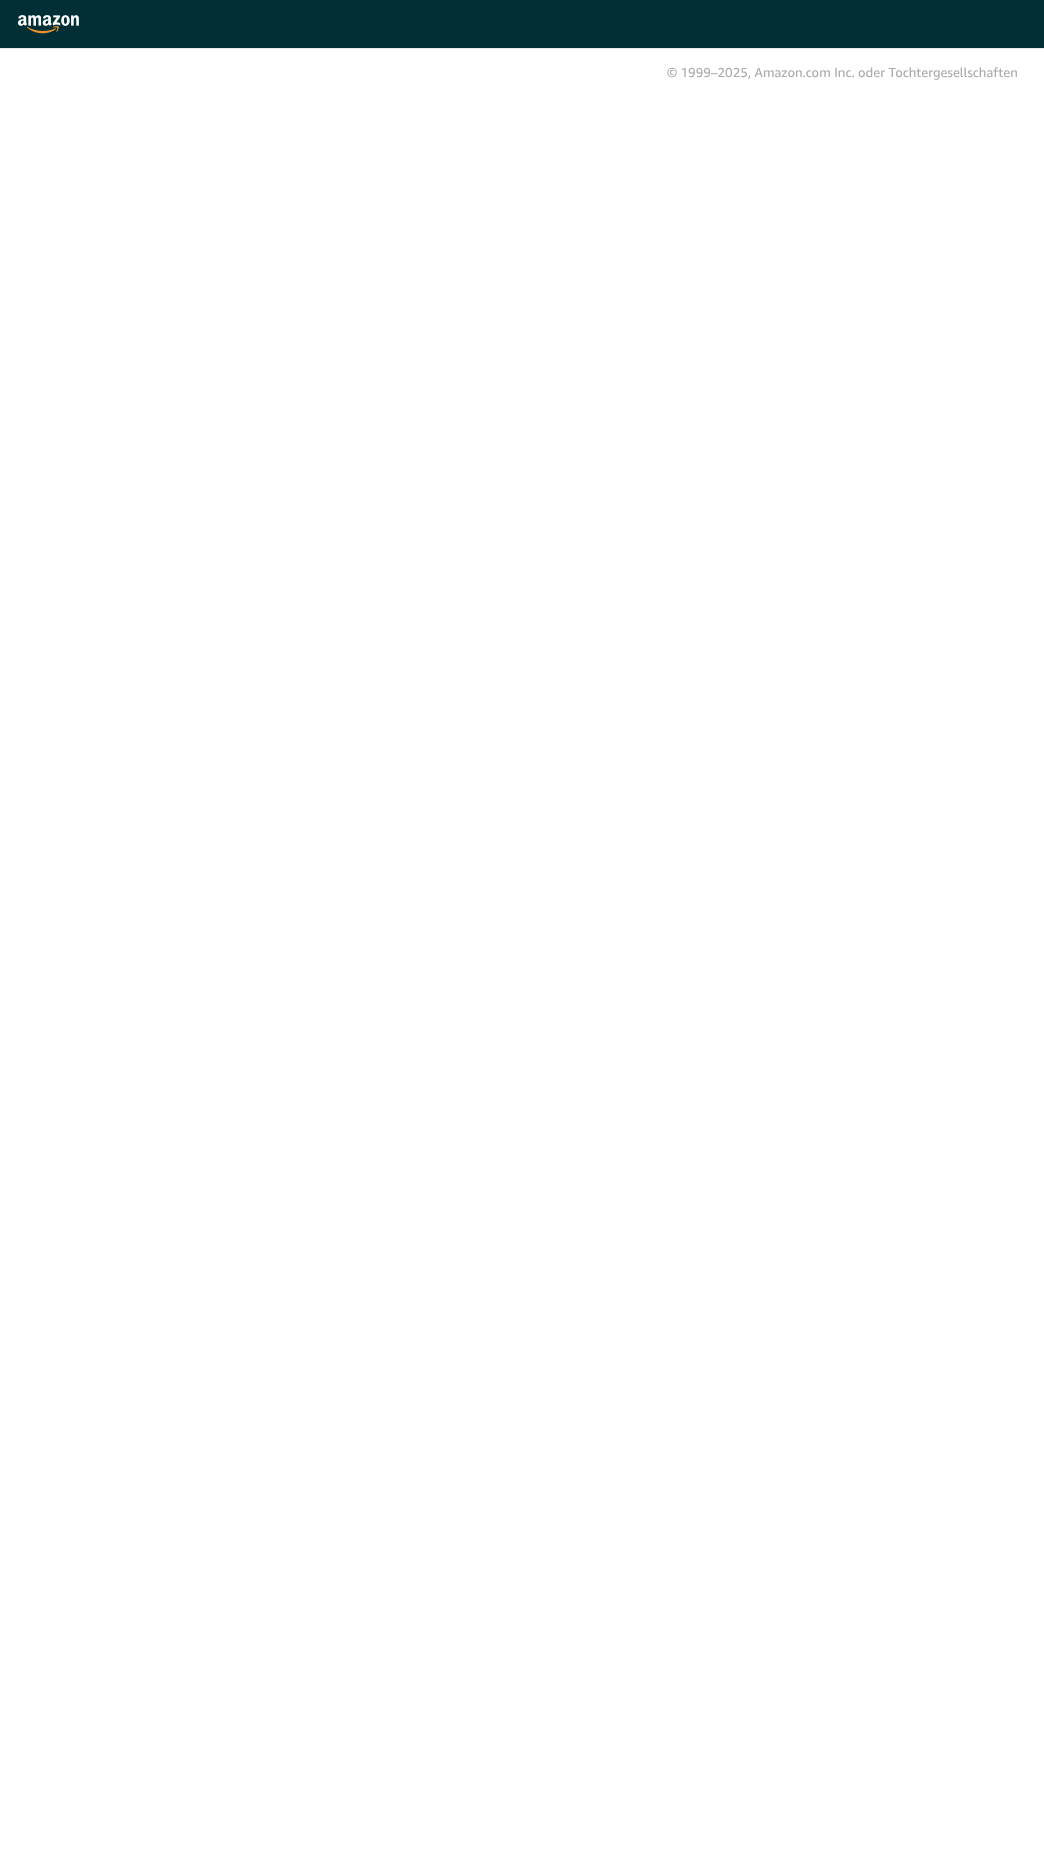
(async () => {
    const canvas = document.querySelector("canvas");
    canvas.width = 1044;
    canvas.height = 1855;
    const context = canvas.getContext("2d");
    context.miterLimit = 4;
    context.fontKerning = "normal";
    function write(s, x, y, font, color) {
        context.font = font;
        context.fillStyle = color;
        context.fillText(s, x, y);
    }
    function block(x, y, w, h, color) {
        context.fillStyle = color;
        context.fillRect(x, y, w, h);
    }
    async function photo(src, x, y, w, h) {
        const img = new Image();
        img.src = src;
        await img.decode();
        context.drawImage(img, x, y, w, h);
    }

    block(0, 0, 1044, 1855, "rgb(255, 255, 255)");
    block(0, 0, 1044, 48, "rgb(0, 47, 54)");
    await photo("media/1.png", 18, 15, 61, 19);
    block(0, 48, 1044, 1, "rgb(231, 231, 231)");
    write("© 1999–2025, Amazon.com Inc. oder Tochtergesellschaften", 667, 77, "13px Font", "rgb(170, 170, 170)");
})();
